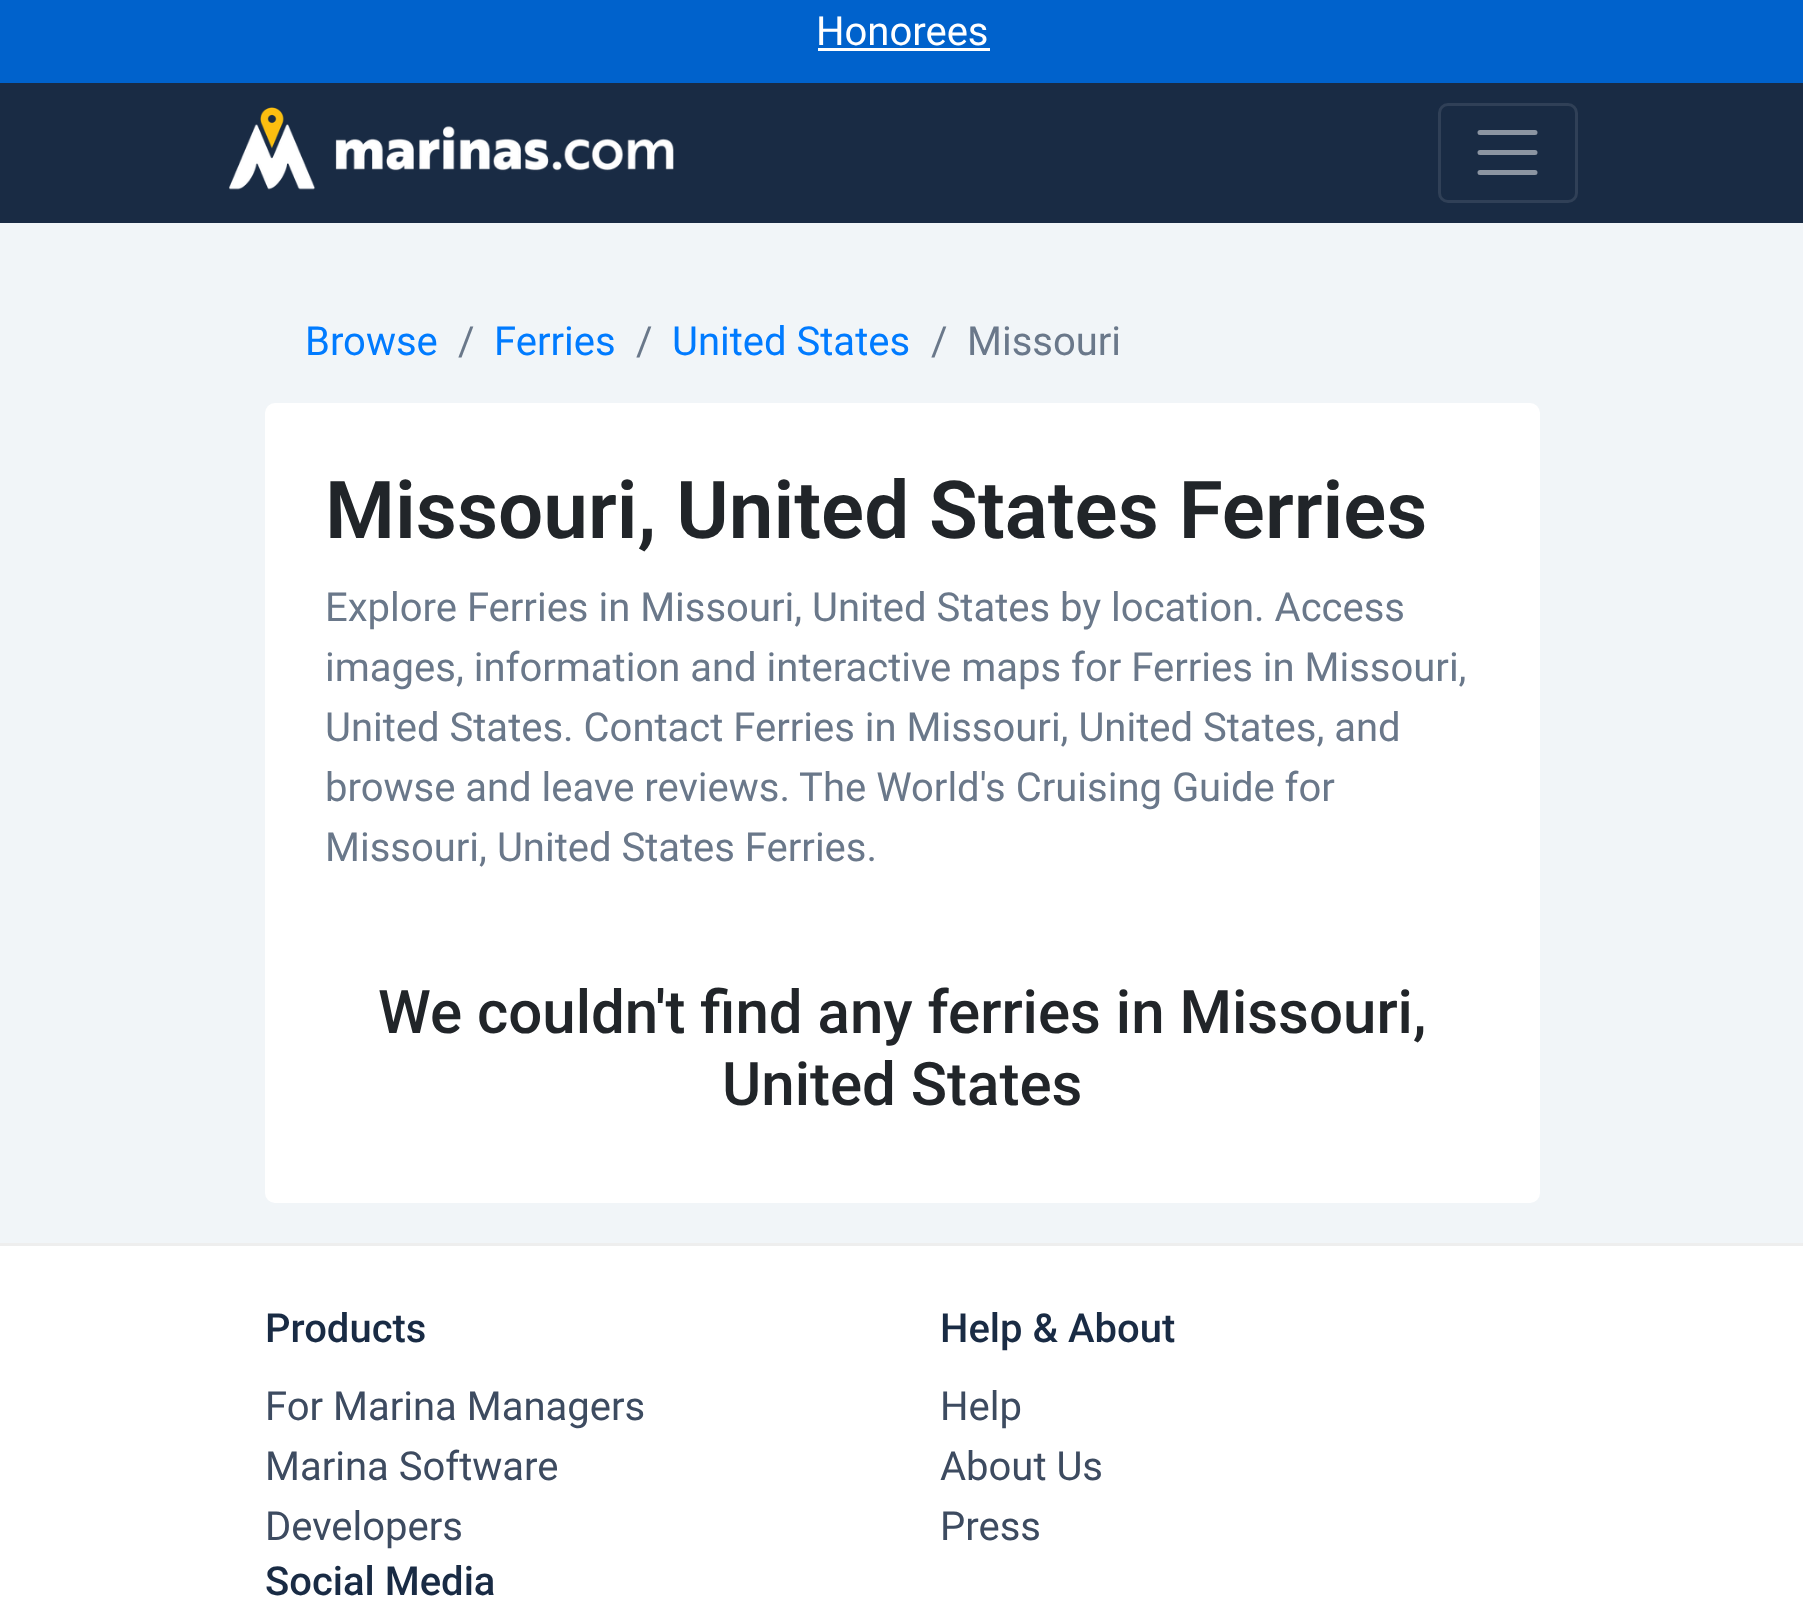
(async () => {
    const canvas = document.querySelector("canvas");
    canvas.width = 1803;
    canvas.height = 1610;
    const context = canvas.getContext("2d");
    context.miterLimit = 4;
    context.fontKerning = "normal";
    function write(s, x, y, font, color) {
        context.font = font;
        context.fillStyle = color;
        context.fillText(s, x, y);
    }
    function block(x, y, w, h, color) {
        context.fillStyle = color;
        context.fillRect(x, y, w, h);
    }
    function card(x, y, w, h, r, color) {
        context.fillStyle = color;
        context.beginPath();
        context.roundRect(x, y, w, h, r);
        context.fill();
    }
    async function photo(src, x, y, w, h) {
        const img = new Image();
        img.src = src;
        await img.decode();
        context.drawImage(img, x, y, w, h);
    }

    block(0, 0, 1803, 1610, "rgb(241, 245, 248)");
    block(0, 0, 1803, 83, "rgb(0, 98, 204)");
    write("Honorees", 816, 45, "40px Roboto", "rgb(255, 255, 255)");
    block(818, 48, 172, 3, "rgb(255, 255, 255)");
    block(0, 83, 1803, 140, "rgb(25, 43, 68)");
    await photo("media/1.png", 229, 107, 445, 83);
    context.beginPath();
    context.roundRect(1439.5, 104.5, 137, 97, 8.5);
    context.strokeStyle = "rgb(48, 64, 87)";
    context.lineWidth = 3;
    context.stroke();
    context.beginPath();
    context.moveTo(1480, 132.5);
    context.lineTo(1535, 132.5);
    context.moveTo(1480, 152.5);
    context.lineTo(1535, 152.5);
    context.moveTo(1480, 172.5);
    context.lineTo(1535, 172.5);
    context.strokeStyle = "rgb(140, 149, 162)";
    context.lineWidth = 5;
    context.lineCap = "round";
    context.stroke();
    write("Browse", 305, 355, "40px Roboto", "rgb(0, 123, 255)");
    write("/", 458, 355, "40px Roboto", "rgb(106, 120, 138)");
    write("Ferries", 494, 355, "40px Roboto", "rgb(0, 123, 255)");
    write("/", 636, 355, "40px Roboto", "rgb(106, 120, 138)");
    write("United States", 672, 355, "40px Roboto", "rgb(0, 123, 255)");
    write("/", 931, 355, "40px Roboto", "rgb(106, 120, 138)");
    write("Missouri", 967, 355, "40px Roboto", "rgb(106, 120, 138)");
    card(265, 403, 1275, 800, 10, "rgb(255, 255, 255)");
    write("Missouri, United States Ferries", 325, 538, "600 80px Roboto", "rgb(33, 37, 41)");
    write("Explore Ferries in Missouri, United States by location. Access", 325, 621, "40px Roboto", "rgb(106, 120, 138)");
    write("images, information and interactive maps for Ferries in Missouri,", 325, 681, "40px Roboto", "rgb(106, 120, 138)");
    write("United States. Contact Ferries in Missouri, United States, and", 325, 741, "40px Roboto", "rgb(106, 120, 138)");
    write("browse and leave reviews. The World's Cruising Guide for", 325, 801, "40px Roboto", "rgb(106, 120, 138)");
    write("Missouri, United States Ferries.", 325, 861, "40px Roboto", "rgb(106, 120, 138)");
    write("We couldn't find any ferries in Missouri,", 378, 1033, "500 60px Roboto", "rgb(33, 37, 41)");
    write("United States", 722, 1105, "500 60px Roboto", "rgb(33, 37, 41)");
    block(0, 1246, 1803, 364, "rgb(255, 255, 255)");
    block(0, 1243, 1803, 3, "rgb(238, 238, 238)");
    write("Products", 265, 1342, "500 40px Roboto", "rgb(25, 43, 68)");
    write("For Marina Managers", 265, 1420, "40px Roboto", "rgb(61, 75, 96)");
    write("Marina Software", 265, 1480, "40px Roboto", "rgb(61, 75, 96)");
    write("Developers", 265, 1540, "40px Roboto", "rgb(61, 75, 96)");
    write("Help & About", 940, 1342, "500 40px Roboto", "rgb(25, 43, 68)");
    write("Help", 940, 1420, "40px Roboto", "rgb(61, 75, 96)");
    write("About Us", 940, 1480, "40px Roboto", "rgb(61, 75, 96)");
    write("Press", 940, 1540, "40px Roboto", "rgb(61, 75, 96)");
    write("Social Media", 265, 1595, "500 40px Roboto", "rgb(25, 43, 68)");
})();
